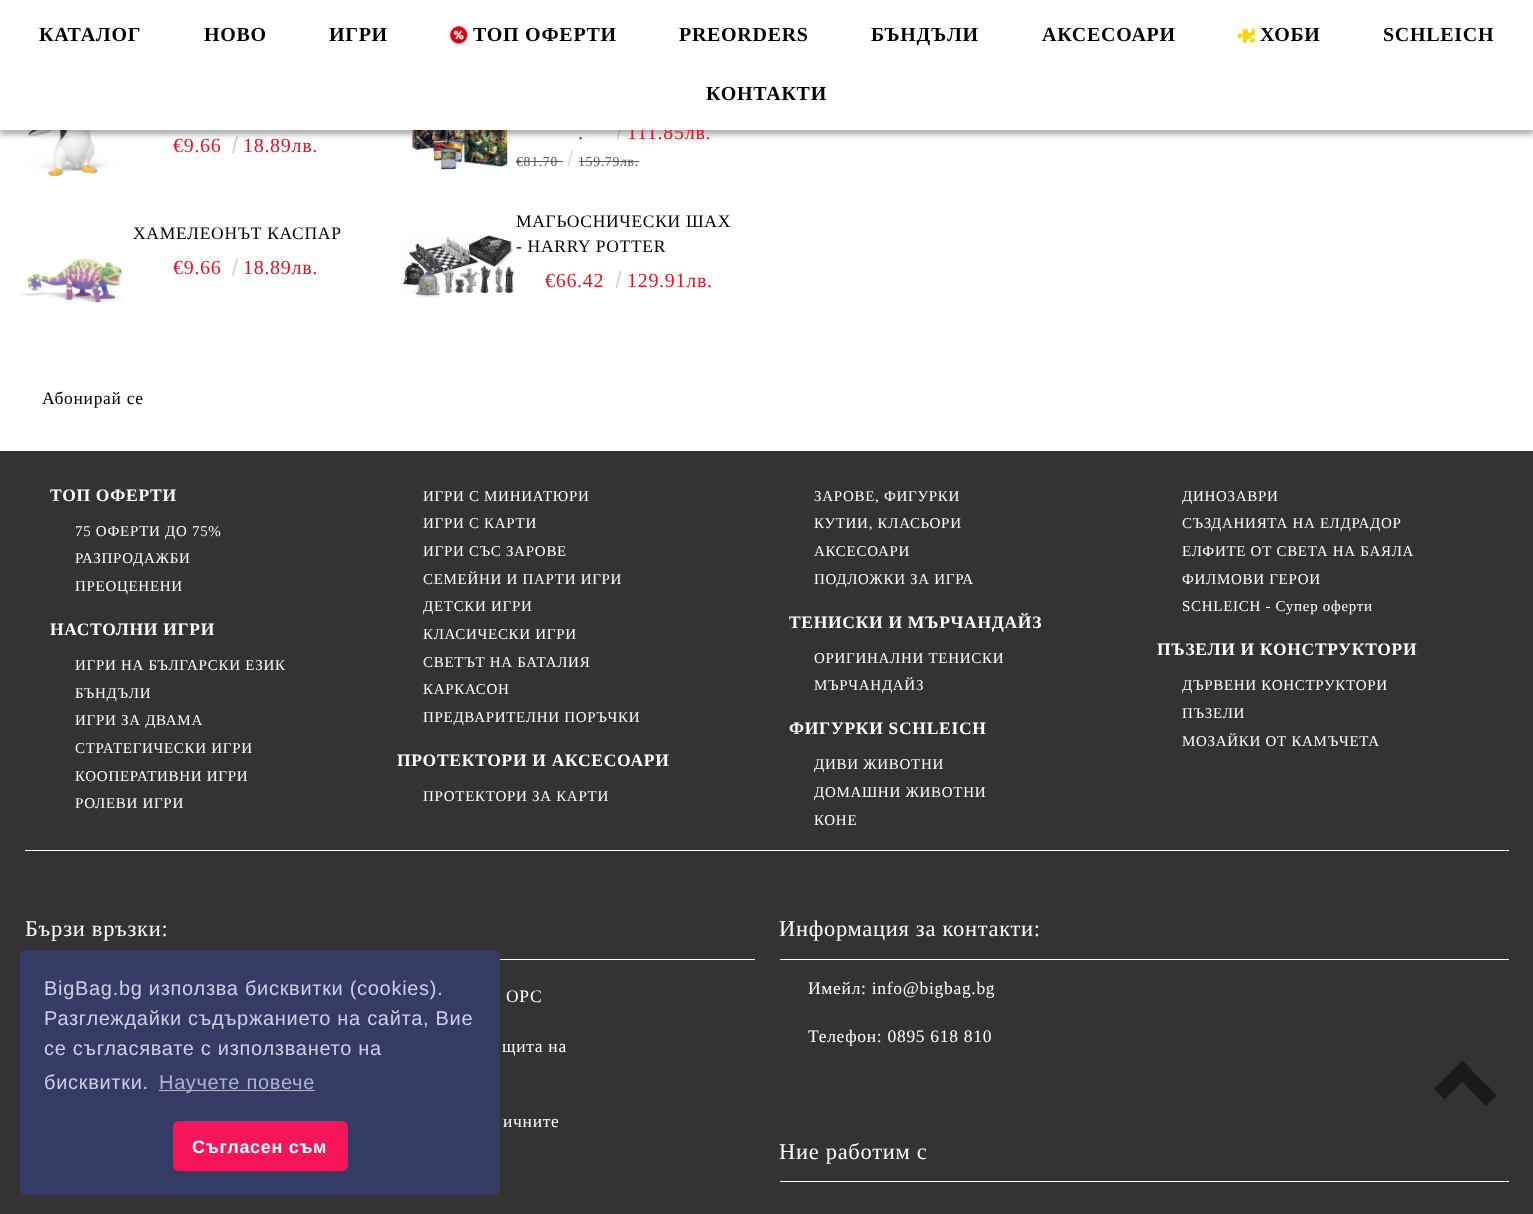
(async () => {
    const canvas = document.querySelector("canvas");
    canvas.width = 1533;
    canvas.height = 1214;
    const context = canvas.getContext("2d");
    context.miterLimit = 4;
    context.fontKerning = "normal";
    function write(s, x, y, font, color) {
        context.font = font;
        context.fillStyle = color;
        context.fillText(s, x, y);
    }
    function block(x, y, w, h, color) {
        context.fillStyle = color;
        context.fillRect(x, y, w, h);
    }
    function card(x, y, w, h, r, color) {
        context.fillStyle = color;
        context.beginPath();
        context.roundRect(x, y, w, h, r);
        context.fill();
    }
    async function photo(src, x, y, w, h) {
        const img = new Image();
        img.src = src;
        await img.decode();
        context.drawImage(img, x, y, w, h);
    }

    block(0, 0, 1533, 1214, "rgb(255, 255, 255)");
    await photo("media/3.png", 28, 130, 93, 47);
    context.fillStyle = "rgb(203, 203, 203)";
    context.beginPath();
    context.moveTo(236.5, 136);
    context.lineTo(238, 136);
    context.lineTo(233.5, 153);
    context.lineTo(232, 153);
    context.closePath();
    context.fill();
    await photo("media/5.png", 410, 130, 101, 41);
    context.letterSpacing = "0.7px";
    write(".", 578, 139, "20px Liberation Serif", "rgb(232, 18, 37)");
    write("159.79лв.", 578, 166, "13.75px Liberation Serif", "rgb(89, 89, 89)");
    block(579, 161, 60, 1, "rgb(89, 89, 89)");
    context.fillStyle = "rgb(203, 203, 203)";
    context.beginPath();
    context.moveTo(621, 123.5);
    context.lineTo(622, 123.5);
    context.lineTo(617.5, 140.5);
    context.lineTo(616.5, 140.5);
    context.closePath();
    context.moveTo(572, 149.5);
    context.lineTo(573, 150);
    context.lineTo(568.5, 166.5);
    context.lineTo(567.5, 166.5);
    context.closePath();
    context.fill();
    context.fillStyle = "rgba(0, 0, 0, 0.25)";
    context.filter = "blur(3px)";
    context.beginPath();
    context.rect(0, 4, 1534, 130);
    context.fill();
    context.filter = "none";
    context.fillStyle = "rgba(0, 0, 0, 0.1)";
    context.filter = "blur(2.5px)";
    context.beginPath();
    context.rect(0, 5, 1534, 130);
    context.fill();
    context.filter = "none";
    write("111.85лв.", 627, 139, "20px Liberation Serif", "rgb(232, 18, 37)");
    block(0, 0, 1533, 130, "rgb(255, 255, 255)");
    write("КАТАЛОГ", 39, 41, "bold 20px Liberation Serif", "rgb(0, 0, 0)");
    write("НОВО", 204, 41, "bold 20px Liberation Serif", "rgb(0, 0, 0)");
    write("ИГРИ", 329, 41, "bold 20px Liberation Serif", "rgb(0, 0, 0)");
    await photo("media/1.png", 450, 26, 18, 19);
    write("ТОП ОФЕРТИ", 473, 41, "bold 20px Liberation Serif", "rgb(0, 0, 0)");
    write("PREORDERS", 679, 41, "bold 20px Liberation Serif", "rgb(0, 0, 0)");
    write("БЪНДЪЛИ", 871, 41, "bold 20px Liberation Serif", "rgb(0, 0, 0)");
    write("АКСЕСОАРИ", 1042, 41, "bold 20px Liberation Serif", "rgb(0, 0, 0)");
    await photo("media/2.png", 1237, 28, 18, 16);
    write("ХОБИ", 1260, 41, "bold 20px Liberation Serif", "rgb(0, 0, 0)");
    write("SCHLEICH", 1383, 41, "bold 20px Liberation Serif", "rgb(0, 0, 0)");
    write("КОНТАКТИ", 706, 100, "bold 20px Liberation Serif", "rgb(0, 0, 0)");
    write("€9.66", 173, 152, "20px Liberation Serif", "rgb(232, 18, 37)");
    write("18.89лв.", 243, 152, "20px Liberation Serif", "rgb(232, 18, 37)");
    write("ХАМЕЛЕОНЪТ КАСПАР", 133, 239, "17.5px Liberation Serif", "rgb(0, 0, 0)");
    write("€9.66", 173, 274, "20px Liberation Serif", "rgb(232, 18, 37)");
    context.fillStyle = "rgb(203, 203, 203)";
    context.beginPath();
    context.moveTo(236.5, 258.5);
    context.lineTo(238, 258.5);
    context.lineTo(233.5, 275.5);
    context.lineTo(232, 275.5);
    context.closePath();
    context.fill();
    write("18.89лв.", 243, 274, "20px Liberation Serif", "rgb(232, 18, 37)");
    await photo("media/4.png", 20, 258, 103, 45);
    write("Абонирай се", 42, 404, "17.5px Liberation Serif", "rgb(0, 0, 0)");
    write("€81.70", 516, 166, "13.75px Liberation Serif", "rgb(89, 89, 89)");
    block(516, 161, 47, 1, "rgb(89, 89, 89)");
    await photo("media/6.png", 402, 235, 113, 63);
    write("МАГЬОСНИЧЕСКИ ШАХ", 516, 227, "17.5px Liberation Serif", "rgb(0, 0, 0)");
    write("- HARRY POTTER", 516, 252, "17.5px Liberation Serif", "rgb(0, 0, 0)");
    write("€66.42", 545, 287, "20px Liberation Serif", "rgb(232, 18, 37)");
    context.fillStyle = "rgb(203, 203, 203)";
    context.beginPath();
    context.moveTo(620, 271);
    context.lineTo(621.5, 271);
    context.lineTo(617, 288);
    context.lineTo(615.5, 288);
    context.closePath();
    context.fill();
    write("129.91лв.", 627, 287, "20px Liberation Serif", "rgb(232, 18, 37)");
    block(0, 451, 1533, 763, "rgb(51, 51, 51)");
    block(25, 850, 1484, 1, "rgb(255, 255, 255)");
    write("ТОП ОФЕРТИ", 50, 501, "bold 17.5px Liberation Serif", "rgb(255, 255, 255)");
    write("75 ОФЕРТИ ДО 75%", 75, 536, "15px Liberation Serif", "rgb(255, 255, 255)");
    write("РАЗПРОДАЖБИ", 75, 563, "15px Liberation Serif", "rgb(255, 255, 255)");
    write("ПРЕОЦЕНЕНИ", 75, 591, "15px Liberation Serif", "rgb(255, 255, 255)");
    write("НАСТОЛНИ ИГРИ", 50, 635, "bold 17.5px Liberation Serif", "rgb(255, 255, 255)");
    write("ИГРИ НА БЪЛГАРСКИ ЕЗИК", 75, 670, "15px Liberation Serif", "rgb(255, 255, 255)");
    write("БЪНДЪЛИ", 75, 698, "15px Liberation Serif", "rgb(255, 255, 255)");
    write("ИГРИ ЗА ДВАМА", 75, 725, "15px Liberation Serif", "rgb(255, 255, 255)");
    write("СТРАТЕГИЧЕСКИ ИГРИ", 75, 753, "15px Liberation Serif", "rgb(255, 255, 255)");
    write("КООПЕРАТИВНИ ИГРИ", 75, 781, "15px Liberation Serif", "rgb(255, 255, 255)");
    write("РОЛЕВИ ИГРИ", 75, 808, "15px Liberation Serif", "rgb(255, 255, 255)");
    write("ИГРИ С МИНИАТЮРИ", 423, 501, "15px Liberation Serif", "rgb(255, 255, 255)");
    write("ИГРИ С КАРТИ", 423, 528, "15px Liberation Serif", "rgb(255, 255, 255)");
    write("ИГРИ СЪС ЗАРОВЕ", 423, 556, "15px Liberation Serif", "rgb(255, 255, 255)");
    write("СЕМЕЙНИ И ПАРТИ ИГРИ", 423, 584, "15px Liberation Serif", "rgb(255, 255, 255)");
    write("ДЕТСКИ ИГРИ", 423, 611, "15px Liberation Serif", "rgb(255, 255, 255)");
    write("КЛАСИЧЕСКИ ИГРИ", 423, 639, "15px Liberation Serif", "rgb(255, 255, 255)");
    write("СВЕТЪТ НА БАТАЛИЯ", 423, 667, "15px Liberation Serif", "rgb(255, 255, 255)");
    write("КАРКАСОН", 423, 694, "15px Liberation Serif", "rgb(255, 255, 255)");
    write("ПРЕДВАРИТЕЛНИ ПОРЪЧКИ", 423, 722, "15px Liberation Serif", "rgb(255, 255, 255)");
    write("ПРОТЕКТОРИ И АКСЕСОАРИ", 397, 766, "bold 17.5px Liberation Serif", "rgb(255, 255, 255)");
    write("ПРОТЕКТОРИ ЗА КАРТИ", 423, 801, "15px Liberation Serif", "rgb(255, 255, 255)");
    write("ЗАРОВЕ, ФИГУРКИ", 814, 501, "15px Liberation Serif", "rgb(255, 255, 255)");
    write("КУТИИ, КЛАСЬОРИ", 814, 528, "15px Liberation Serif", "rgb(255, 255, 255)");
    write("АКСЕСОАРИ", 814, 556, "15px Liberation Serif", "rgb(255, 255, 255)");
    write("ПОДЛОЖКИ ЗА ИГРА", 814, 584, "15px Liberation Serif", "rgb(255, 255, 255)");
    write("ТЕНИСКИ И МЪРЧАНДАЙЗ", 789, 628, "bold 17.5px Liberation Serif", "rgb(255, 255, 255)");
    write("ОРИГИНАЛНИ ТЕНИСКИ", 814, 663, "15px Liberation Serif", "rgb(255, 255, 255)");
    write("МЪРЧАНДАЙЗ", 814, 690, "15px Liberation Serif", "rgb(255, 255, 255)");
    write("ФИГУРКИ SCHLEICH", 789, 734, "bold 17.5px Liberation Serif", "rgb(255, 255, 255)");
    write("ДИВИ ЖИВОТНИ", 814, 769, "15px Liberation Serif", "rgb(255, 255, 255)");
    write("ДОМАШНИ ЖИВОТНИ", 814, 797, "15px Liberation Serif", "rgb(255, 255, 255)");
    write("КОНЕ", 814, 825, "15px Liberation Serif", "rgb(255, 255, 255)");
    write("ДИНОЗАВРИ", 1182, 501, "15px Liberation Serif", "rgb(255, 255, 255)");
    write("СЪЗДАНИЯТА НА ЕЛДРАДОР", 1182, 528, "15px Liberation Serif", "rgb(255, 255, 255)");
    write("ЕЛФИТЕ ОТ СВЕТА НА БАЯЛА", 1182, 556, "15px Liberation Serif", "rgb(255, 255, 255)");
    write("ФИЛМОВИ ГЕРОИ", 1182, 584, "15px Liberation Serif", "rgb(255, 255, 255)");
    write("SCHLEICH - Супер оферти", 1182, 611, "15px Liberation Serif", "rgb(255, 255, 255)");
    write("ПЪЗЕЛИ И КОНСТРУКТОРИ", 1157, 655, "bold 17.5px Liberation Serif", "rgb(255, 255, 255)");
    write("ДЪРВЕНИ КОНСТРУКТОРИ", 1182, 690, "15px Liberation Serif", "rgb(255, 255, 255)");
    write("ПЪЗЕЛИ", 1182, 718, "15px Liberation Serif", "rgb(255, 255, 255)");
    write("МОЗАЙКИ ОТ КАМЪЧЕТА", 1182, 746, "15px Liberation Serif", "rgb(255, 255, 255)");
    block(500, 959, 255, 1, "rgb(255, 255, 255)");
    write("Бързи връзки:", 25, 936, "22.5px Liberation Serif", "rgb(255, 255, 255)");
    write("ОРС", 506, 1002, "17.5px Liberation Serif", "rgb(255, 255, 255)");
    write("щита на", 502, 1052, "17.5px Liberation Serif", "rgb(255, 255, 255)");
    write("ичните", 503, 1127, "17.5px Liberation Serif", "rgb(255, 255, 255)");
    block(780, 959, 729, 1, "rgb(255, 255, 255)");
    write("Информация за контакти:", 779, 936, "22.5px Liberation Serif", "rgb(255, 255, 255)");
    write("Имейл: info@bigbag.bg", 808, 994, "17.5px Liberation Serif", "rgb(255, 255, 255)");
    write("Телефон: 0895 618 810", 808, 1042, "17.5px Liberation Serif", "rgb(255, 255, 255)");
    block(780, 1181, 729, 1, "rgb(255, 255, 255)");
    write("Ние работим с", 779, 1159, "22.5px Liberation Serif", "rgb(255, 255, 255)");
    card(20, 950, 480, 245, 6, "rgb(52, 60, 102)");
    write("BigBag.bg използва бисквитки (cookies).", 44, 995, "20px Liberation Sans", "rgb(207, 207, 232)");
    write("Разглеждайки съдържанието на сайта, Вие", 44, 1025, "20px Liberation Sans", "rgb(207, 207, 232)");
    write("се съгласявате с използването на", 44, 1055, "20px Liberation Sans", "rgb(207, 207, 232)");
    write("бисквитки.", 44, 1089, "20px Liberation Sans", "rgb(207, 207, 232)");
    block(159, 1090, 156, 1, "rgb(176, 178, 206)");
    write("Научете повече", 159, 1089, "20px Liberation Sans", "rgb(176, 178, 206)");
    card(173, 1121, 175, 50, 6, "rgb(247, 21, 89)");
    write("Съгласен съм", 192, 1153, "bold 18px Liberation Sans", "rgb(255, 255, 255)");
    context.fillStyle = "rgb(26, 26, 26)";
    context.beginPath();
    context.moveTo(1444.5, 1099.5);
    context.lineTo(1434, 1089);
    context.lineTo(1462.5, 1060.5);
    context.lineTo(1473, 1071);
    context.closePath();
    context.fill();
    context.beginPath();
    context.moveTo(1486, 1106);
    context.lineTo(1452, 1071);
    context.lineTo(1462, 1061);
    context.lineTo(1497, 1095);
    context.closePath();
    context.fill();
})();
